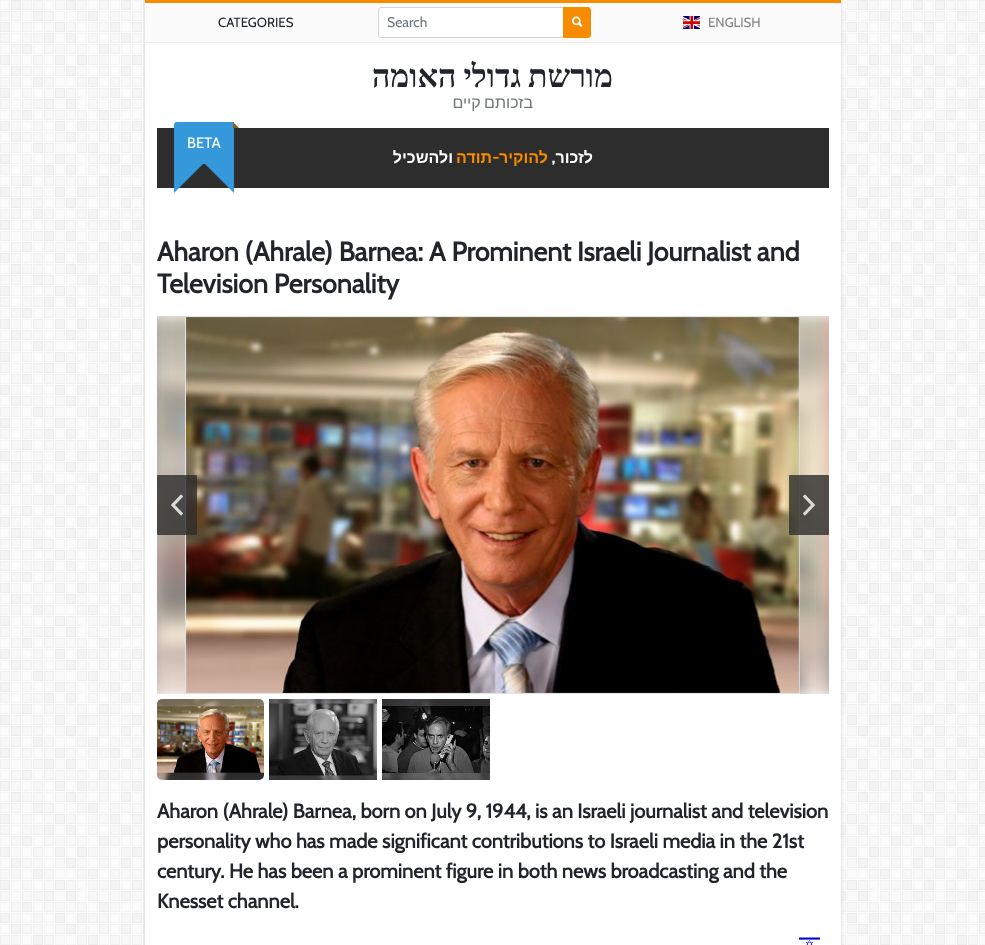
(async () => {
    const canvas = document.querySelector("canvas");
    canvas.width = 985;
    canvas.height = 945;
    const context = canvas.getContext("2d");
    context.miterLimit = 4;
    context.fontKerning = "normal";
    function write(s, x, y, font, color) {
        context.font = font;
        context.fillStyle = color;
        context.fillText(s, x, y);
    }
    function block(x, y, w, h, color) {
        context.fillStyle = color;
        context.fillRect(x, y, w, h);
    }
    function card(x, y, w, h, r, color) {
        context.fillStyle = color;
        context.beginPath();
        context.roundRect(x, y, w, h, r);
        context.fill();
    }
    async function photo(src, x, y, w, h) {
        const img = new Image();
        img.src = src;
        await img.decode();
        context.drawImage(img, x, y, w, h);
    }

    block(0, 0, 985, 945, "rgb(255, 255, 255)");
    await photo("media/1.png", 0, 0, 985, 945);
    context.fillStyle = "rgb(202, 202, 202)";
    context.filter = "blur(1.5px)";
    context.beginPath();
    context.rect(145, 0, 696, 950);
    context.fill();
    context.filter = "none";
    block(145, 43, 696, 902, "rgb(255, 255, 255)");
    block(145, 0, 696, 3, "rgb(248, 140, 0)");
    block(145, 3, 696, 39, "rgb(251, 251, 251)");
    block(145, 42, 696, 1, "rgb(236, 236, 236)");
    write("CATEGORIES", 218, 27, "13.25px Cabin", "rgb(33, 37, 41)");
    context.fillStyle = "rgb(255, 255, 255)";
    context.beginPath();
    context.roundRect(378.5, 7.5, 185, 30, [2.5, 0, 0, 2.5]);
    context.fill();
    context.strokeStyle = "rgb(206, 212, 218)";
    context.stroke();
    write("Search", 387, 27, "14px Cabin", "rgb(108, 117, 125)");
    context.fillStyle = "rgb(248, 140, 0)";
    context.beginPath();
    context.roundRect(563.5, 7.5, 27, 30, [0, 2.5, 2.5, 0]);
    context.fill();
    context.strokeStyle = "rgb(248, 140, 0)";
    context.stroke();
    await photo("media/2.png", 572, 16, 11, 11);
    await photo("media/3.png", 683, 16, 17, 13);
    write("ENGLISH", 708, 27, "13.25px Cabin", "rgb(131, 131, 131)");
    context.wordSpacing = "-1px";
    context.direction = "rtl";
    write("מורשת גדולי האומה", 613, 87, "bold 32px Liberation Serif", "rgb(33, 37, 41)");
    write("בזכותם קיים", 533, 108, "16px Liberation Sans", "rgb(108, 117, 125)");
    block(157, 128, 672, 60, "rgb(45, 45, 45)");
    context.fillStyle = "rgb(52, 152, 219)";
    context.beginPath();
    context.roundRect(174, 122, 60, 42, [3, 0, 0, 0]);
    context.fill();
    context.fillStyle = "rgb(141, 90, 32)";
    context.beginPath();
    context.moveTo(239, 128);
    context.lineTo(233, 128);
    context.lineTo(233, 122);
    context.closePath();
    context.fill();
    context.wordSpacing = "0px";
    context.direction = "ltr";
    write("BETA", 187, 148, "15px Cabin", "rgb(255, 255, 255)");
    context.fillStyle = "rgb(52, 152, 219)";
    context.beginPath();
    context.moveTo(234, 163);
    context.lineTo(234, 193);
    context.lineTo(204, 163);
    context.closePath();
    context.moveTo(174, 193);
    context.lineTo(174, 163);
    context.lineTo(204, 163);
    context.closePath();
    context.fill();
    context.direction = "rtl";
    write("ולהשכיל", 453, 163, "bold 16px Liberation Sans", "rgb(255, 255, 255)");
    write("תודה", 492, 163, "bold 16px Liberation Sans", "rgb(248, 140, 0)");
    write("-", 499, 163, "bold 16px Cabin", "rgb(248, 140, 0)");
    write("להוקיר", 548, 163, "bold 16px Liberation Sans", "rgb(248, 140, 0)");
    write("לזכור", 593, 163, "bold 16px Liberation Sans", "rgb(255, 255, 255)");
    write(",", 555, 163, "bold 16px Cabin", "rgb(255, 255, 255)");
    context.direction = "ltr";
    write("Aharon (Ahrale) Barnea: A Prominent Israeli Journalist and", 157, 261, "bold 26.75px Cabin", "rgb(33, 37, 41)");
    write("Television Personality", 157, 293, "bold 26.75px Cabin", "rgb(33, 37, 41)");
    await photo("media/4.png", 157, 316, 13, 378);
    await photo("media/5.png", 157, 316, 672, 378);
    context.strokeStyle = "rgb(222, 226, 230)";
    context.strokeRect(185.5, 316.5, 614, 377);
    await photo("media/6.png", 186, 317, 614, 376);
    await photo("media/7.png", 816, 316, 13, 378);
    card(157, 475, 40, 60, 1, "rgba(45, 45, 45, 0.8)");
    await photo("media/8.png", 171, 494, 12, 22);
    card(789, 475, 40, 60, 1, "rgba(45, 45, 45, 0.8)");
    await photo("media/9.png", 803, 494, 12, 22);
    await photo("media/10.png", 157, 699, 107, 81);
    await photo("media/11.png", 269, 699, 108, 81);
    await photo("media/12.png", 382, 699, 108, 81);
    write("Aharon (Ahrale) Barnea, born on July 9, 1944, is an Israeli journalist and television", 157, 818, "bold 20px Cabin", "rgb(33, 37, 41)");
    write("personality who has made significant contributions to Israeli media in the 21st", 157, 848, "bold 20px Cabin", "rgb(33, 37, 41)");
    write("century. He has been a prominent figure in both news broadcasting and the", 157, 878, "bold 20px Cabin", "rgb(33, 37, 41)");
    write("Knesset channel.", 157, 908, "bold 20px Cabin", "rgb(33, 37, 41)");
    await photo("media/13.png", 799, 937, 21, 8);
})();
